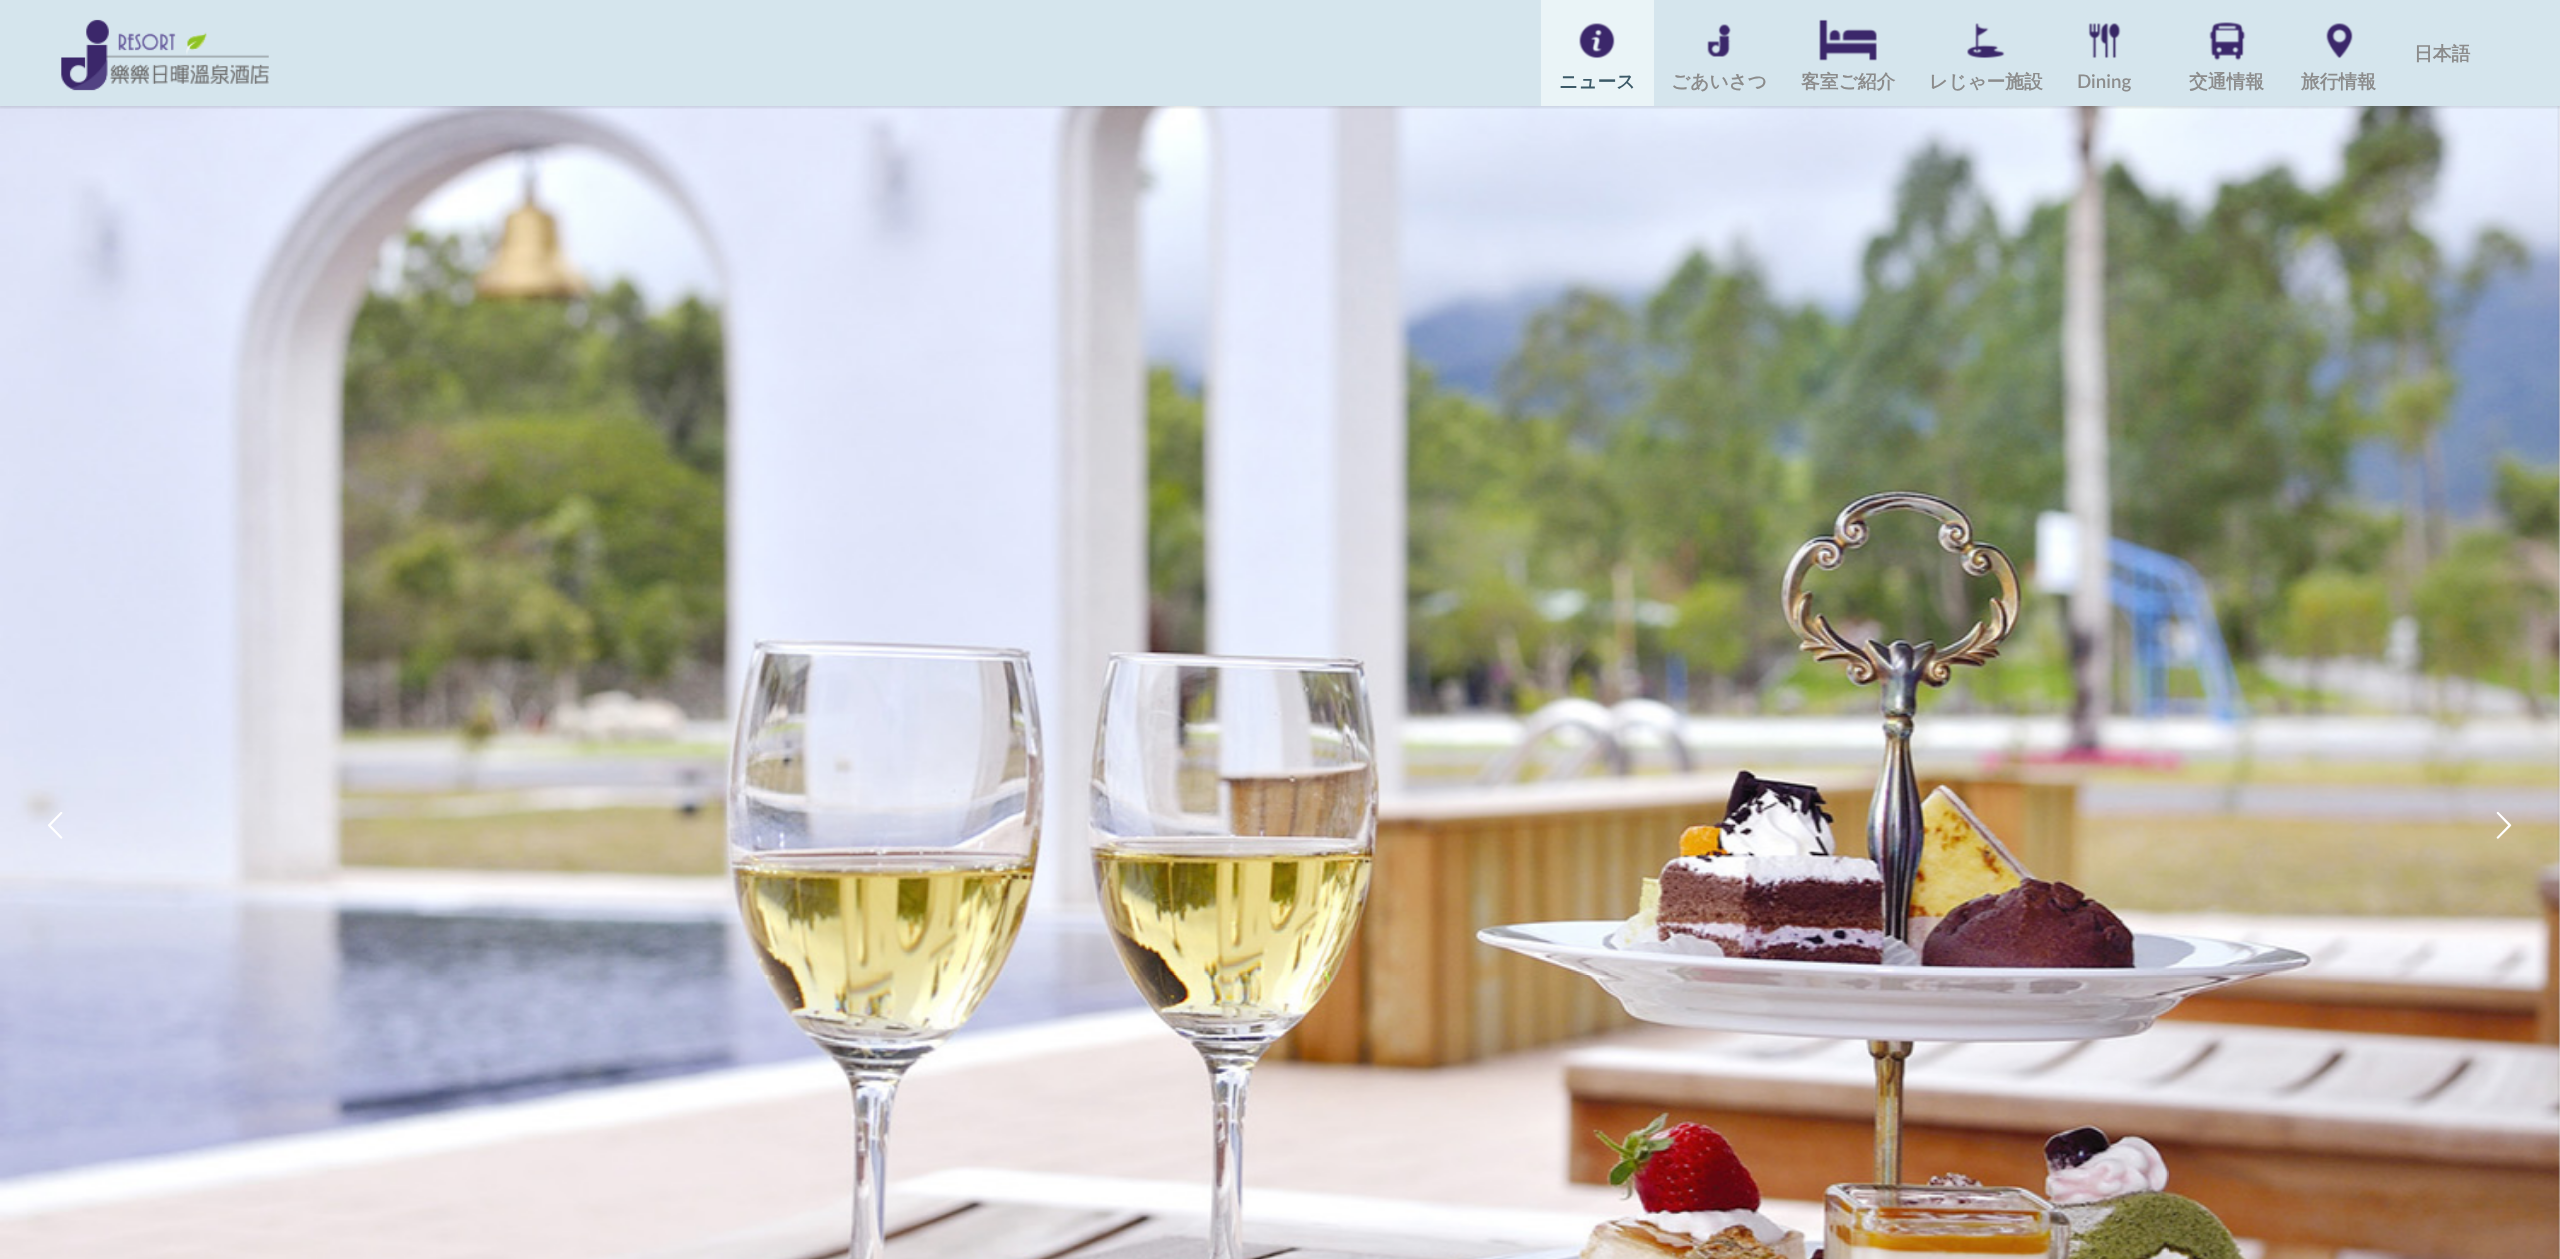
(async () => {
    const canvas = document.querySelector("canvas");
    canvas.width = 2560;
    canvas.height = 1259;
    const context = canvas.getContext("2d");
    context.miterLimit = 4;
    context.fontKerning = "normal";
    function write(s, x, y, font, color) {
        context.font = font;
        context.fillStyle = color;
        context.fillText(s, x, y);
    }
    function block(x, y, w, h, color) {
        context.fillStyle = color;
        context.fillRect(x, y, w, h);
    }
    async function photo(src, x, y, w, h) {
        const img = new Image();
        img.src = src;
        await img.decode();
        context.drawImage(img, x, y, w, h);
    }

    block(0, 0, 2560, 1259, "rgb(213, 229, 237)");
    block(2558, 106, 2, 1153, "rgb(255, 255, 255)");
    await photo("media/9.png", 0, 106, 2560, 1153);
    context.save();
    context.beginPath();
    context.rect(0, 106, 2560, 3);
    context.clip();
    context.fillStyle = "rgba(0, 0, 0, 0.1)";
    context.filter = "blur(1px)";
    context.beginPath();
    context.rect(-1, -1, 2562, 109);
    context.fill();
    context.filter = "none";
    context.restore();
    await photo("media/1.png", 61, 19, 208, 72);
    write("日本語", 2414, 60, "bold 18.75px WenQuanYi Zen Hei", "rgb(140, 140, 140)");
    block(1541, 0, 113, 106, "rgb(234, 244, 247)");
    await photo("media/2.png", 1579, 23, 36, 36);
    write("ニュース", 1559, 88, "bold 18.75px WenQuanYi Zen Hei", "rgb(60, 90, 104)");
    await photo("media/3.png", 1707, 24, 24, 33);
    write("ごあいさつ", 1671, 88, "bold 18.75px WenQuanYi Zen Hei", "rgb(140, 140, 140)");
    await photo("media/4.png", 1819, 19, 58, 42);
    write("客室ご紹介", 1801, 88, "bold 18.75px WenQuanYi Zen Hei", "rgb(140, 140, 140)");
    await photo("media/5.png", 1967, 23, 38, 36);
    write("レじゃー施設", 1929, 88, "bold 18.75px WenQuanYi Zen Hei", "rgb(140, 140, 140)");
    await photo("media/6.png", 2088, 23, 33, 36);
    write("Dining", 2077, 88, "600 18.75px Lato", "rgb(140, 140, 140)");
    await photo("media/7.png", 2209, 22, 37, 39);
    write("交通情報", 2189, 88, "bold 18.75px WenQuanYi Zen Hei", "rgb(140, 140, 140)");
    await photo("media/8.png", 2326, 23, 27, 36);
    write("旅行情報", 2301, 88, "bold 18.75px WenQuanYi Zen Hei", "rgb(140, 140, 140)");
    await photo("media/10.png", 48, 812, 15, 27);
    await photo("media/11.png", 2496, 811, 16, 28);
})();
